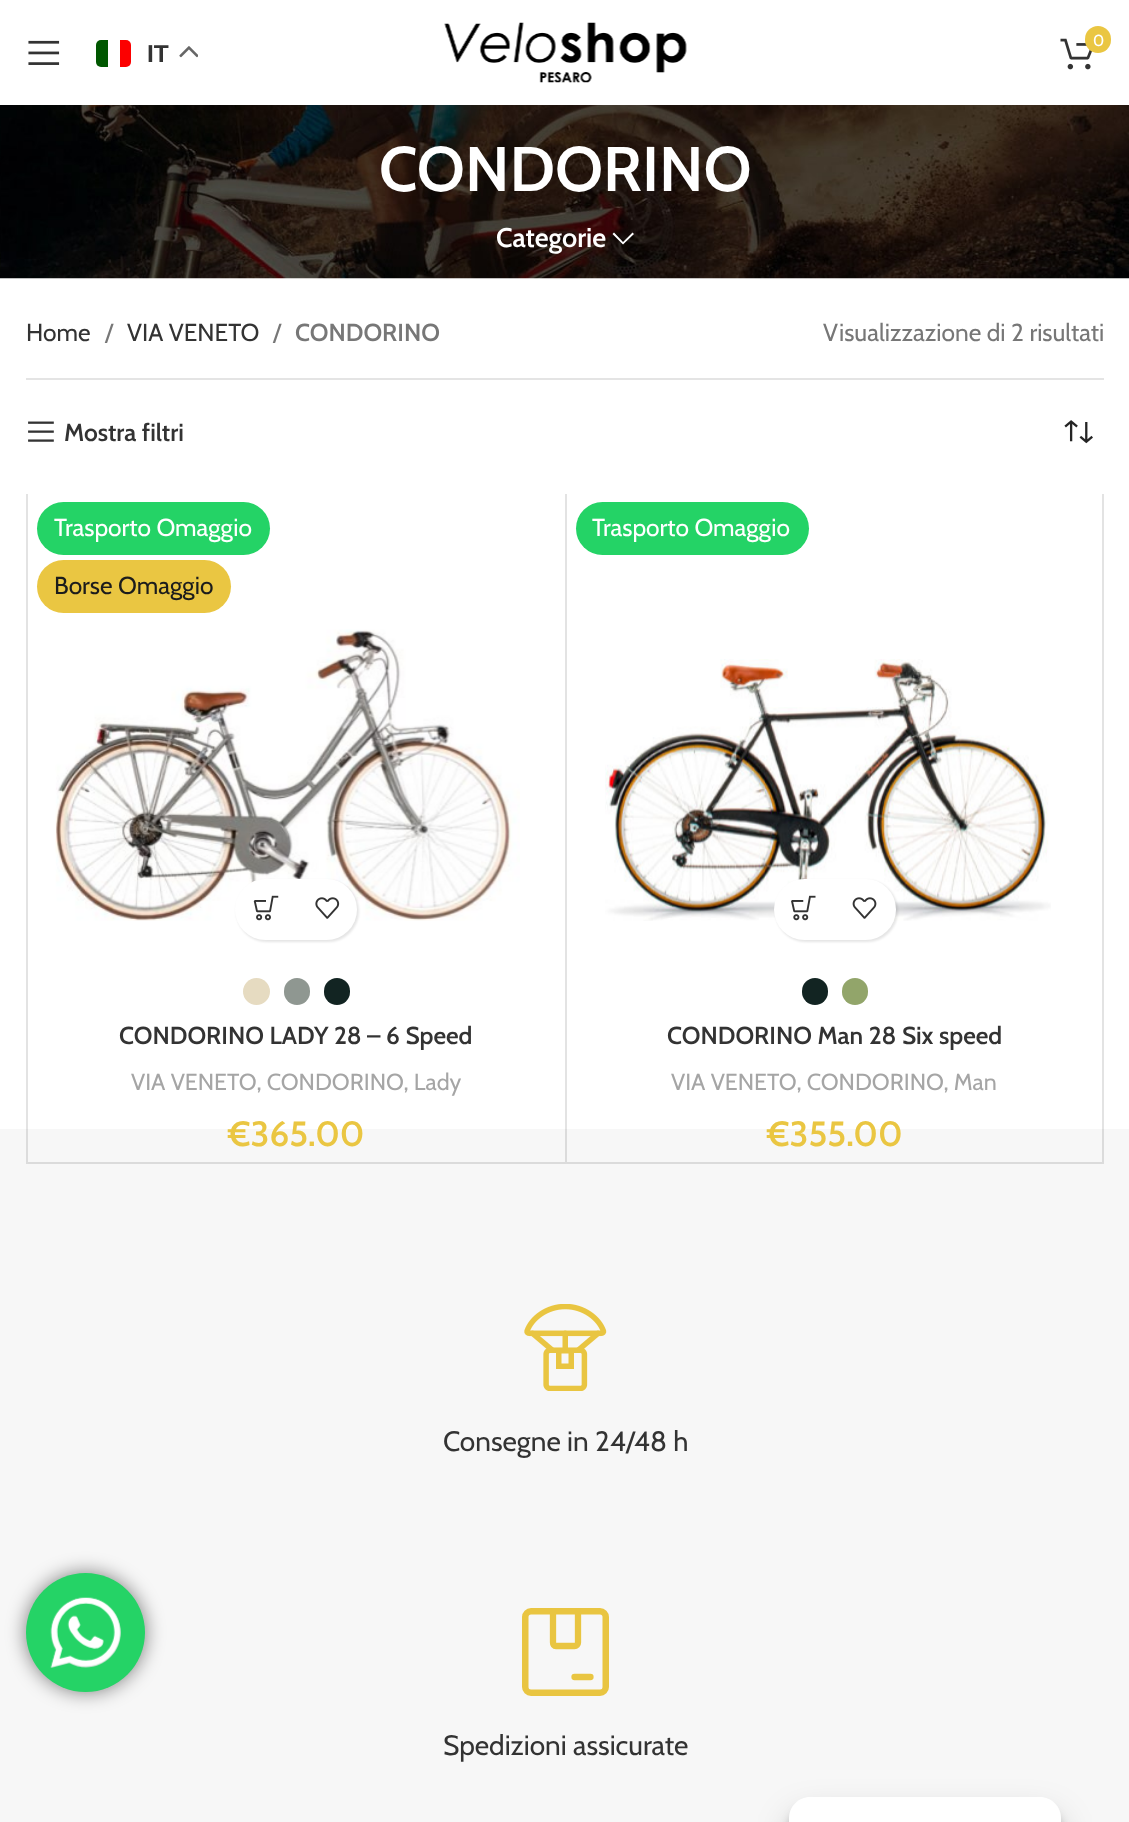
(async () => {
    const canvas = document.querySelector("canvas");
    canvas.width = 1129;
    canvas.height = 1822;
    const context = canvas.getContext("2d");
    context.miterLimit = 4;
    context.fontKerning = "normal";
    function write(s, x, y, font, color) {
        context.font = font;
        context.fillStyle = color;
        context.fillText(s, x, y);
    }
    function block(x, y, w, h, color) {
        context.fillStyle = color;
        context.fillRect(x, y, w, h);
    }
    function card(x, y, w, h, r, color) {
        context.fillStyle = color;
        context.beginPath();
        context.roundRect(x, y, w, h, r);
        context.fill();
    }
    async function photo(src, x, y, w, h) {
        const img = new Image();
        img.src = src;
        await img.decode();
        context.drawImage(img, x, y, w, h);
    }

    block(0, 0, 1129, 1822, "rgb(255, 255, 255)");
    block(26, 494, 2, 635, "rgb(227, 227, 227)");
    await photo("media/1.png", 444, 22, 243, 61);
    await photo("media/2.png", 1060, 38, 33, 32);
    card(1085, 26, 26, 27, 13, "rgb(234, 198, 66)");
    write("0", 1093, 46, "16px Cabin", "rgb(255, 255, 255)");
    await photo("media/3.png", 28, 40, 32, 25);
    context.fillStyle = "rgb(0, 87, 0)";
    context.beginPath();
    context.roundRect(96, 40, 12, 27, [5, 0, 0, 5]);
    context.fill();
    context.fillStyle = "rgb(252, 0, 0)";
    context.beginPath();
    context.roundRect(120, 40, 11, 27, [0, 5, 5, 0]);
    context.fill();
    write("IT", 147, 62, "bold 24.5px Liberation Sans", "rgb(51, 51, 51)");
    await photo("media/4.png", 179, 46, 19, 12);
    await photo("media/5.png", 0, 105, 1129, 174);
    write("CONDORINO", 379, 191, "600 63px Cabin", "rgb(255, 255, 255)");
    write("Categorie", 496, 247, "600 27px Cabin", "rgb(255, 255, 255)");
    context.beginPath();
    context.moveTo(632.5, 232.5);
    context.lineTo(623, 242);
    context.lineTo(614, 232.5);
    context.lineTo(612.5, 234);
    context.lineTo(623, 244.5);
    context.lineTo(634, 234);
    context.closePath();
    context.fill();
    block(26, 378, 1078, 2, "rgb(228, 228, 228)");
    write("Home", 26, 341, "24.5px Cabin", "rgb(51, 51, 51)");
    write("/", 105, 341, "24.5px Cabin", "rgb(119, 119, 119)");
    write("VIA VENETO", 127, 341, "24.5px Cabin", "rgb(51, 51, 51)");
    write("/", 273, 341, "24.5px Cabin", "rgb(119, 119, 119)");
    write("CONDORINO", 295, 341, "600 24.5px Cabin", "rgb(119, 119, 119)");
    write("Visualizzazione di 2 risultati", 823, 341, "24.5px Cabin", "rgb(119, 119, 119)");
    await photo("media/6.png", 28, 421, 26, 21);
    write("Mostra filtri", 64, 441, "600 24.5px Cabin", "rgb(51, 51, 51)");
    await photo("media/7.png", 1064, 420, 29, 24);
    block(0, 1129, 1129, 693, "rgb(247, 247, 247)");
    context.fillStyle = "rgba(0, 0, 0, 0.11)";
    context.beginPath();
    context.moveTo(567, 494);
    context.lineTo(567, 1164);
    context.lineTo(565, 1162);
    context.lineTo(565, 494);
    context.closePath();
    context.fill();
    context.beginPath();
    context.moveTo(567, 1164);
    context.lineTo(28, 1164);
    context.lineTo(28, 1162);
    context.lineTo(565, 1162);
    context.closePath();
    context.fill();
    card(37, 502, 233, 53, 26.5, "rgb(36, 211, 102)");
    write("Trasporto Omaggio", 54, 536, "24.5px Cabin", "rgb(255, 255, 255)");
    card(37, 560, 194, 53, 26.5, "rgb(234, 198, 66)");
    write("Borse Omaggio", 54, 594, "24.5px Cabin", "rgb(28, 28, 28)");
    await photo("media/8.png", 55, 629, 465, 292);
    context.fillStyle = "rgba(0, 0, 0, 0.1)";
    context.filter = "blur(1px)";
    context.beginPath();
    context.roundRect(236, 880, 123, 62, 31);
    context.fill();
    context.filter = "none";
    card(235, 879, 122, 61, 30.5, "rgb(255, 255, 255)");
    await photo("media/9.png", 253, 895, 26, 26);
    await photo("media/10.png", 315, 897, 25, 22);
    context.fillStyle = "rgb(230, 219, 193)";
    context.beginPath();
    context.arc(256.5, 991.5, 13.5, 0, Math.PI * 2);
    context.fill();
    card(284, 978, 26, 27, 13, "rgb(143, 151, 145)");
    card(324, 978, 26, 27, 13, "rgb(18, 36, 34)");
    write("CONDORINO LADY 28 – 6 Speed", 119, 1044, "600 24.5px Cabin", "rgb(51, 51, 51)");
    write("VIA VENETO, CONDORINO, Lady", 131, 1090, "23.25px Cabin", "rgb(165, 165, 165)");
    write("€365.00", 228, 1146, "600 35px Cabin", "rgb(234, 198, 66)");
    context.fillStyle = "rgba(0, 0, 0, 0.11)";
    context.beginPath();
    context.moveTo(1104, 494);
    context.lineTo(1104, 1164);
    context.lineTo(1102, 1162);
    context.lineTo(1102, 494);
    context.closePath();
    context.fill();
    context.beginPath();
    context.moveTo(1104, 1164);
    context.lineTo(567, 1164);
    context.lineTo(567, 1162);
    context.lineTo(1102, 1162);
    context.closePath();
    context.fill();
    card(576, 502, 233, 53, 26.5, "rgb(36, 211, 102)");
    write("Trasporto Omaggio", 592, 536, "24.5px Cabin", "rgb(255, 255, 255)");
    await photo("media/11.png", 605, 659, 446, 262);
    context.fillStyle = "rgba(0, 0, 0, 0.1)";
    context.filter = "blur(1px)";
    context.beginPath();
    context.roundRect(775, 880, 123, 62, 31);
    context.fill();
    context.filter = "none";
    card(774, 879, 122, 61, 30.5, "rgb(255, 255, 255)");
    await photo("media/12.png", 791, 895, 25, 26);
    await photo("media/13.png", 852, 897, 25, 22);
    card(802, 978, 26, 27, 13, "rgb(18, 36, 34)");
    card(842, 978, 26, 27, 13, "rgb(146, 165, 106)");
    write("CONDORINO Man 28 Six speed", 667, 1044, "600 24.5px Cabin", "rgb(51, 51, 51)");
    write("VIA VENETO, CONDORINO, Man", 671, 1090, "23.25px Cabin", "rgb(165, 165, 165)");
    write("€355.00", 767, 1146, "600 35px Cabin", "rgb(234, 198, 66)");
    block(26, 1129, 2, 35, "rgb(220, 220, 220)");
    await photo("media/14.png", 524, 1304, 83, 87);
    write("Consegne in 24/48 h", 443, 1451, "28px Cabin", "rgb(51, 51, 51)");
    context.beginPath();
    context.roundRect(525.25, 1611.25, 80.5, 81.5, 5.75);
    context.strokeStyle = "rgb(233, 197, 65)";
    context.lineWidth = 6.5;
    context.stroke();
    context.beginPath();
    context.moveTo(578, 1611.5);
    context.lineTo(578, 1642.5);
    context.bezierCurveTo(578, 1644.5, 576.5, 1646, 574.5, 1646);
    context.lineTo(556, 1646);
    context.bezierCurveTo(554, 1646, 553, 1644.5, 553, 1642.5);
    context.lineTo(553, 1611.5);
    context.lineWidth = 6.3;
    context.lineCap = "round";
    context.lineJoin = "round";
    context.stroke();
    context.beginPath();
    context.moveTo(574.5, 1677);
    context.lineTo(590.5, 1677);
    context.stroke();
    write("Spedizioni assicurate", 443, 1755, "28px Cabin", "rgb(51, 51, 51)");
    context.fillStyle = "rgba(0, 0, 0, 0.5)";
    context.filter = "blur(9.5px)";
    context.beginPath();
    context.roundRect(26, 1573, 119, 119, 59.5);
    context.fill();
    context.filter = "none";
    context.fillStyle = "rgb(37, 211, 102)";
    context.beginPath();
    context.arc(85.5, 1632.5, 59.5, 0, Math.PI * 2);
    context.fill();
    await photo("media/15.png", 50, 1597, 71, 71);
    context.fillStyle = "rgba(0, 0, 0, 0.23)";
    context.filter = "blur(5px)";
    context.beginPath();
    context.roundRect(789, 1808, 272, 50, 21);
    context.fill();
    context.filter = "none";
    context.fillStyle = "rgba(0, 0, 0, 0.19)";
    context.filter = "blur(17.5px)";
    context.beginPath();
    context.roundRect(789, 1815, 272, 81, 21);
    context.fill();
    context.filter = "none";
    context.fillStyle = "rgb(255, 255, 255)";
    context.beginPath();
    context.moveTo(810, 1797);
    context.lineTo(1040, 1797);
    context.bezierCurveTo(1051.5, 1797, 1061, 1806.5, 1061, 1818);
    context.lineTo(1061, 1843);
    context.lineTo(789, 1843);
    context.lineTo(789, 1818);
    context.bezierCurveTo(789, 1806.5, 798.5, 1797, 810, 1797);
    context.closePath();
    context.fill();
})();
